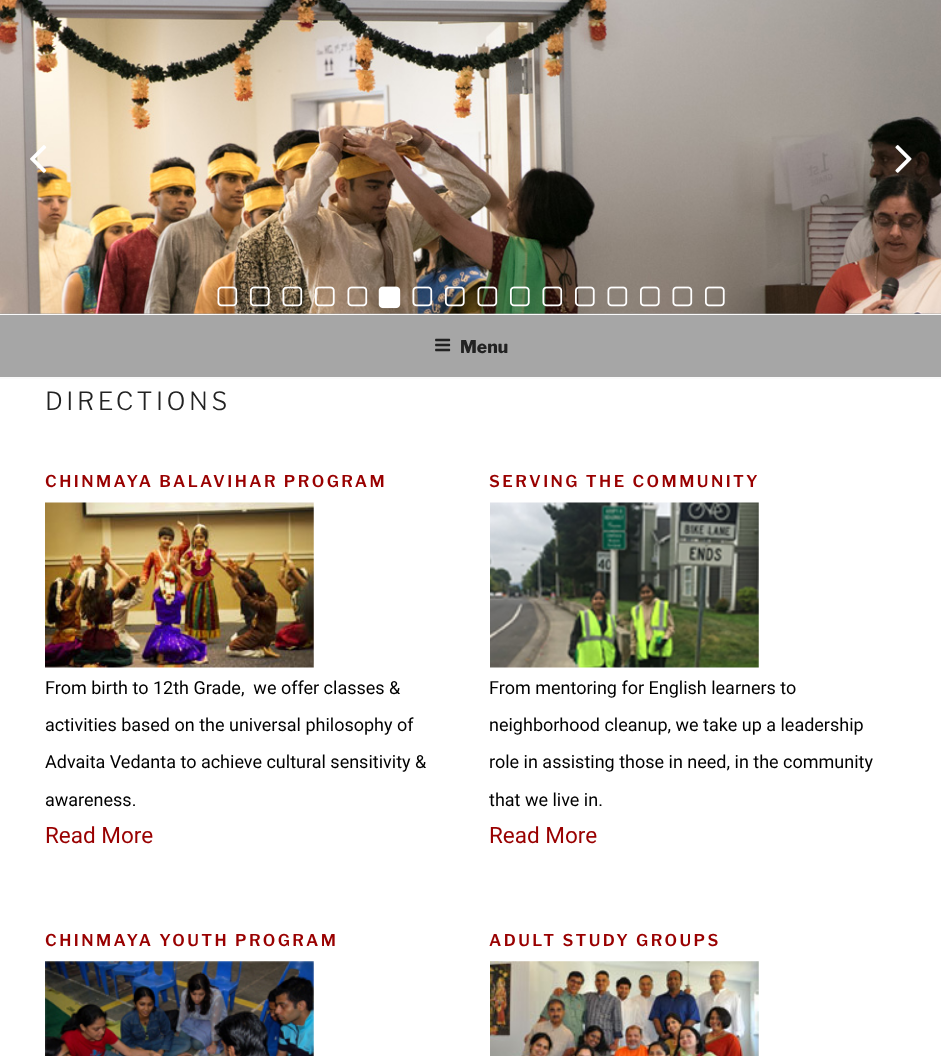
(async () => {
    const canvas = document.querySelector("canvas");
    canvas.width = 941;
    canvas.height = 1056;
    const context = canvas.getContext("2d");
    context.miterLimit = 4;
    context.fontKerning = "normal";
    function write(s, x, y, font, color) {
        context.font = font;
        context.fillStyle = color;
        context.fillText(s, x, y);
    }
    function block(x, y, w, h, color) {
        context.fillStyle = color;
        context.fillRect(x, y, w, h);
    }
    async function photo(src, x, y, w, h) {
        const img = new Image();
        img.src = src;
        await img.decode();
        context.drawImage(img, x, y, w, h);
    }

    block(0, 0, 941, 1056, "rgb(255, 255, 255)");
    block(0, 314, 941, 65, "rgb(250, 250, 250)");
    block(0, 313, 941, 1, "rgb(163, 163, 163)");
    await photo("media/1.png", 0, 0, 941, 314);
    await photo("media/2.png", 30, 145, 17, 28);
    await photo("media/3.png", 895, 145, 17, 28);
    await photo("media/4.png", 217, 286, 21, 21);
    await photo("media/5.png", 250, 286, 20, 21);
    await photo("media/6.png", 282, 286, 21, 21);
    await photo("media/7.png", 315, 286, 20, 21);
    await photo("media/8.png", 347, 286, 21, 21);
    await photo("media/9.png", 378, 286, 23, 23);
    await photo("media/10.png", 412, 286, 21, 21);
    await photo("media/11.png", 445, 286, 20, 21);
    await photo("media/12.png", 477, 286, 21, 21);
    await photo("media/13.png", 510, 286, 20, 21);
    await photo("media/14.png", 542, 286, 21, 21);
    await photo("media/15.png", 575, 286, 20, 21);
    await photo("media/16.png", 607, 286, 21, 21);
    await photo("media/17.png", 640, 286, 20, 21);
    await photo("media/18.png", 672, 286, 21, 21);
    await photo("media/19.png", 705, 286, 20, 21);
    block(0, 315, 941, 62, "rgb(166, 166, 166)");
    await photo("media/20.png", 435, 338, 16, 14);
    write("Menu", 460, 353, "100 17.5px 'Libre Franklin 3'", "rgb(34, 34, 34)");
    context.letterSpacing = "3.5px";
    write("DIRECTIONS", 45, 410, "100 25px Libre Franklin", "rgb(34, 34, 34)");
    context.letterSpacing = "2.45px";
    write("CHINMAYA BALAVIHAR PROGRAM", 45, 487, "100 16.25px 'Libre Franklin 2'", "rgb(153, 0, 0)");
    await photo("media/21.png", 45, 502, 269, 166);
    context.letterSpacing = "0px";
    write("From birth to 12th Grade,  we offer classes &", 45, 694, "18px Roboto", "rgb(0, 0, 0)");
    write("activities based on the universal philosophy of", 45, 731, "18px Roboto", "rgb(0, 0, 0)");
    write("Advaita Vedanta to achieve cultural sensitivity &", 45, 768, "18px Roboto", "rgb(0, 0, 0)");
    write("awareness.", 45, 806, "18px Roboto", "rgb(0, 0, 0)");
    write("Read More", 45, 843, "22.5px Roboto", "rgb(153, 0, 0)");
    context.letterSpacing = "2.45px";
    write("SERVING THE COMMUNITY", 489, 487, "100 16.25px 'Libre Franklin 2'", "rgb(153, 0, 0)");
    await photo("media/22.png", 490, 502, 269, 166);
    context.letterSpacing = "0px";
    write("From mentoring for English learners to", 489, 694, "18px Roboto", "rgb(0, 0, 0)");
    write("neighborhood cleanup, we take up a leadership", 489, 731, "18px Roboto", "rgb(0, 0, 0)");
    write("role in assisting those in need, in the community", 489, 768, "18px Roboto", "rgb(0, 0, 0)");
    write("that we live in.", 489, 806, "18px Roboto", "rgb(0, 0, 0)");
    write("Read More", 489, 843, "22.5px Roboto", "rgb(153, 0, 0)");
    context.letterSpacing = "2.45px";
    write("CHINMAYA YOUTH PROGRAM", 45, 946, "100 16.25px 'Libre Franklin 2'", "rgb(153, 0, 0)");
    await photo("media/23.png", 45, 961, 269, 95);
    write("ADULT STUDY GROUPS", 489, 946, "100 16.25px 'Libre Franklin 2'", "rgb(153, 0, 0)");
    await photo("media/24.png", 490, 961, 269, 95);
})();
